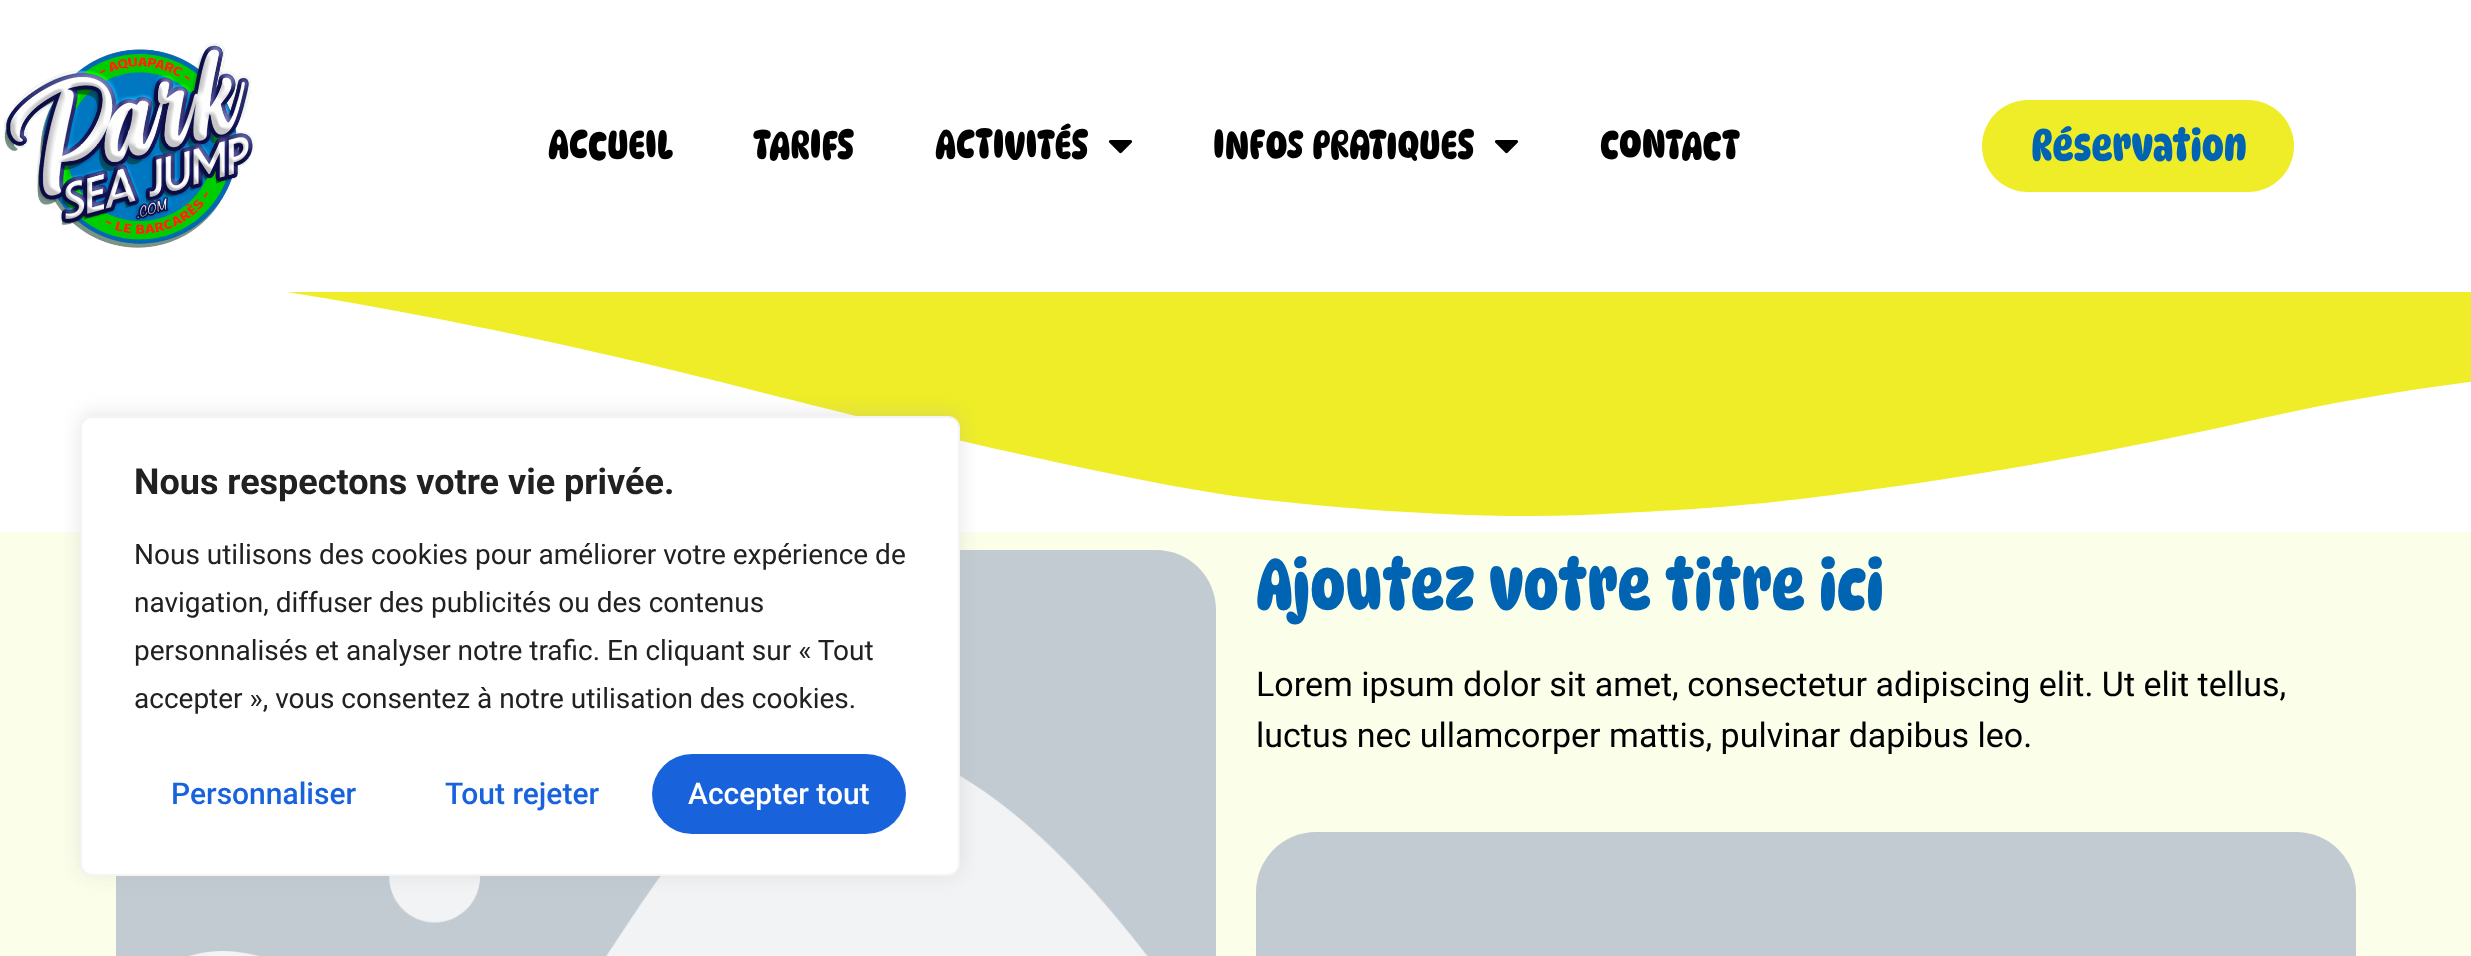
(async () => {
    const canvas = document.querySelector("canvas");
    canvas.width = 2471;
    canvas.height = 956;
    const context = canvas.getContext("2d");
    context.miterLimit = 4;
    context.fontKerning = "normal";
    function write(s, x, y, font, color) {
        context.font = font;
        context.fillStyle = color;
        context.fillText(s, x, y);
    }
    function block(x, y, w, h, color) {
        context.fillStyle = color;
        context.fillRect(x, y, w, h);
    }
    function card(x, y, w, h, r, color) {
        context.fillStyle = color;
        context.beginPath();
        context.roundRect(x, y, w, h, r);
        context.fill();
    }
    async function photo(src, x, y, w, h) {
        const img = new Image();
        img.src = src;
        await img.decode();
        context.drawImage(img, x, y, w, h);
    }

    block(0, 0, 2471, 956, "rgb(251, 255, 234)");
    block(286, 292, 2185, 224, "rgb(238, 237, 40)");
    context.save();
    context.beginPath();
    context.rect(0, 232, 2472, 300);
    context.clip();
    context.fillStyle = "rgb(255, 255, 255)";
    context.beginPath();
    context.moveTo(1622, 513);
    context.bezierCurveTo(1511, 521, 1368, 512, 1249, 498);
    context.bezierCurveTo(1132, 483, 898, 427, 752, 390);
    context.bezierCurveTo(377, 294, 90, 257, -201, 241);
    context.bezierCurveTo(-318, 235, -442, 231, -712, 249);
    context.bezierCurveTo(-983, 267, -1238, 326, -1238, 326);
    context.lineTo(-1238, 533);
    context.lineTo(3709, 533);
    context.lineTo(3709, 442);
    context.bezierCurveTo(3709, 442, 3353, 344, 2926, 351);
    context.bezierCurveTo(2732, 353, 2467, 371, 2263, 418);
    context.bezierCurveTo(2158, 442, 2005, 472, 1869, 490);
    context.bezierCurveTo(1734, 509, 1673, 510, 1622, 513);
    context.closePath();
    context.fill();
    context.restore();
    block(0, 0, 2471, 292, "rgb(255, 255, 255)");
    await photo("media/1.png", 4, 43, 251, 205);
    write("ACCUEIL", 548, 159, "600 40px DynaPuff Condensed", "rgb(0, 0, 0)");
    write("TARIFS", 753, 159, "600 40px DynaPuff Condensed", "rgb(0, 0, 0)");
    write("ACTIVITÉS", 935, 159, "600 40px DynaPuff Condensed", "rgb(0, 0, 0)");
    await photo("media/2.png", 1108, 140, 25, 14);
    write("INFOS PRATIQUES", 1213, 159, "600 40px DynaPuff Condensed", "rgb(0, 0, 0)");
    await photo("media/2.png", 1494, 140, 25, 14);
    write("CONTACT", 1600, 159, "600 40px DynaPuff Condensed", "rgb(0, 0, 0)");
    card(1982, 100, 312, 92, 46, "rgb(238, 237, 40)");
    write("Réservation", 2031, 161, "600 44px DynaPuff Condensed", "rgb(0, 100, 178)");
    await photo("media/3.png", 116, 550, 1100, 406);
    context.fillStyle = "rgba(172, 171, 171, 0.3)";
    context.filter = "blur(10px)";
    context.beginPath();
    context.roundRect(80, 414, 880, 460, 12);
    context.fill();
    context.filter = "none";
    context.fillStyle = "rgb(255, 255, 255)";
    context.beginPath();
    context.roundRect(81, 417, 878, 458, 11);
    context.fill();
    context.strokeStyle = "rgb(244, 244, 244)";
    context.lineWidth = 2;
    context.stroke();
    write("Nous respectons votre vie privée.", 134, 494, "bold 36px Roboto", "rgb(33, 33, 33)");
    write("Nous utilisons des cookies pour améliorer votre expérience de", 134, 564, "28px Roboto", "rgb(33, 33, 33)");
    write("navigation, diffuser des publicités ou des contenus", 134, 612, "28px Roboto", "rgb(33, 33, 33)");
    write("personnalisés et analyser notre trafic. En cliquant sur « Tout", 134, 660, "28px Roboto", "rgb(33, 33, 33)");
    write("accepter », vous consentez à notre utilisation des cookies.", 134, 708, "28px Roboto", "rgb(33, 33, 33)");
    write("Personnaliser", 171, 804, "500 30px Roboto", "rgb(24, 99, 220)");
    write("Tout rejeter", 445, 804, "500 30px Roboto", "rgb(24, 99, 220)");
    card(652, 754, 254, 80, 40, "rgb(24, 99, 220)");
    write("Accepter tout", 688, 804, "500 30px Roboto", "rgb(255, 255, 255)");
    write("Ajoutez votre titre ici", 1256, 610, "600 70px DynaPuff Condensed", "rgb(0, 100, 178)");
    write("Lorem ipsum dolor sit amet, consectetur adipiscing elit. Ut elit tellus,", 1256, 696, "34px Roboto", "rgb(0, 0, 0)");
    write("luctus nec ullamcorper mattis, pulvinar dapibus leo.", 1256, 747, "34px Roboto", "rgb(0, 0, 0)");
    await photo("media/4.png", 1256, 832, 1100, 124);
})();
